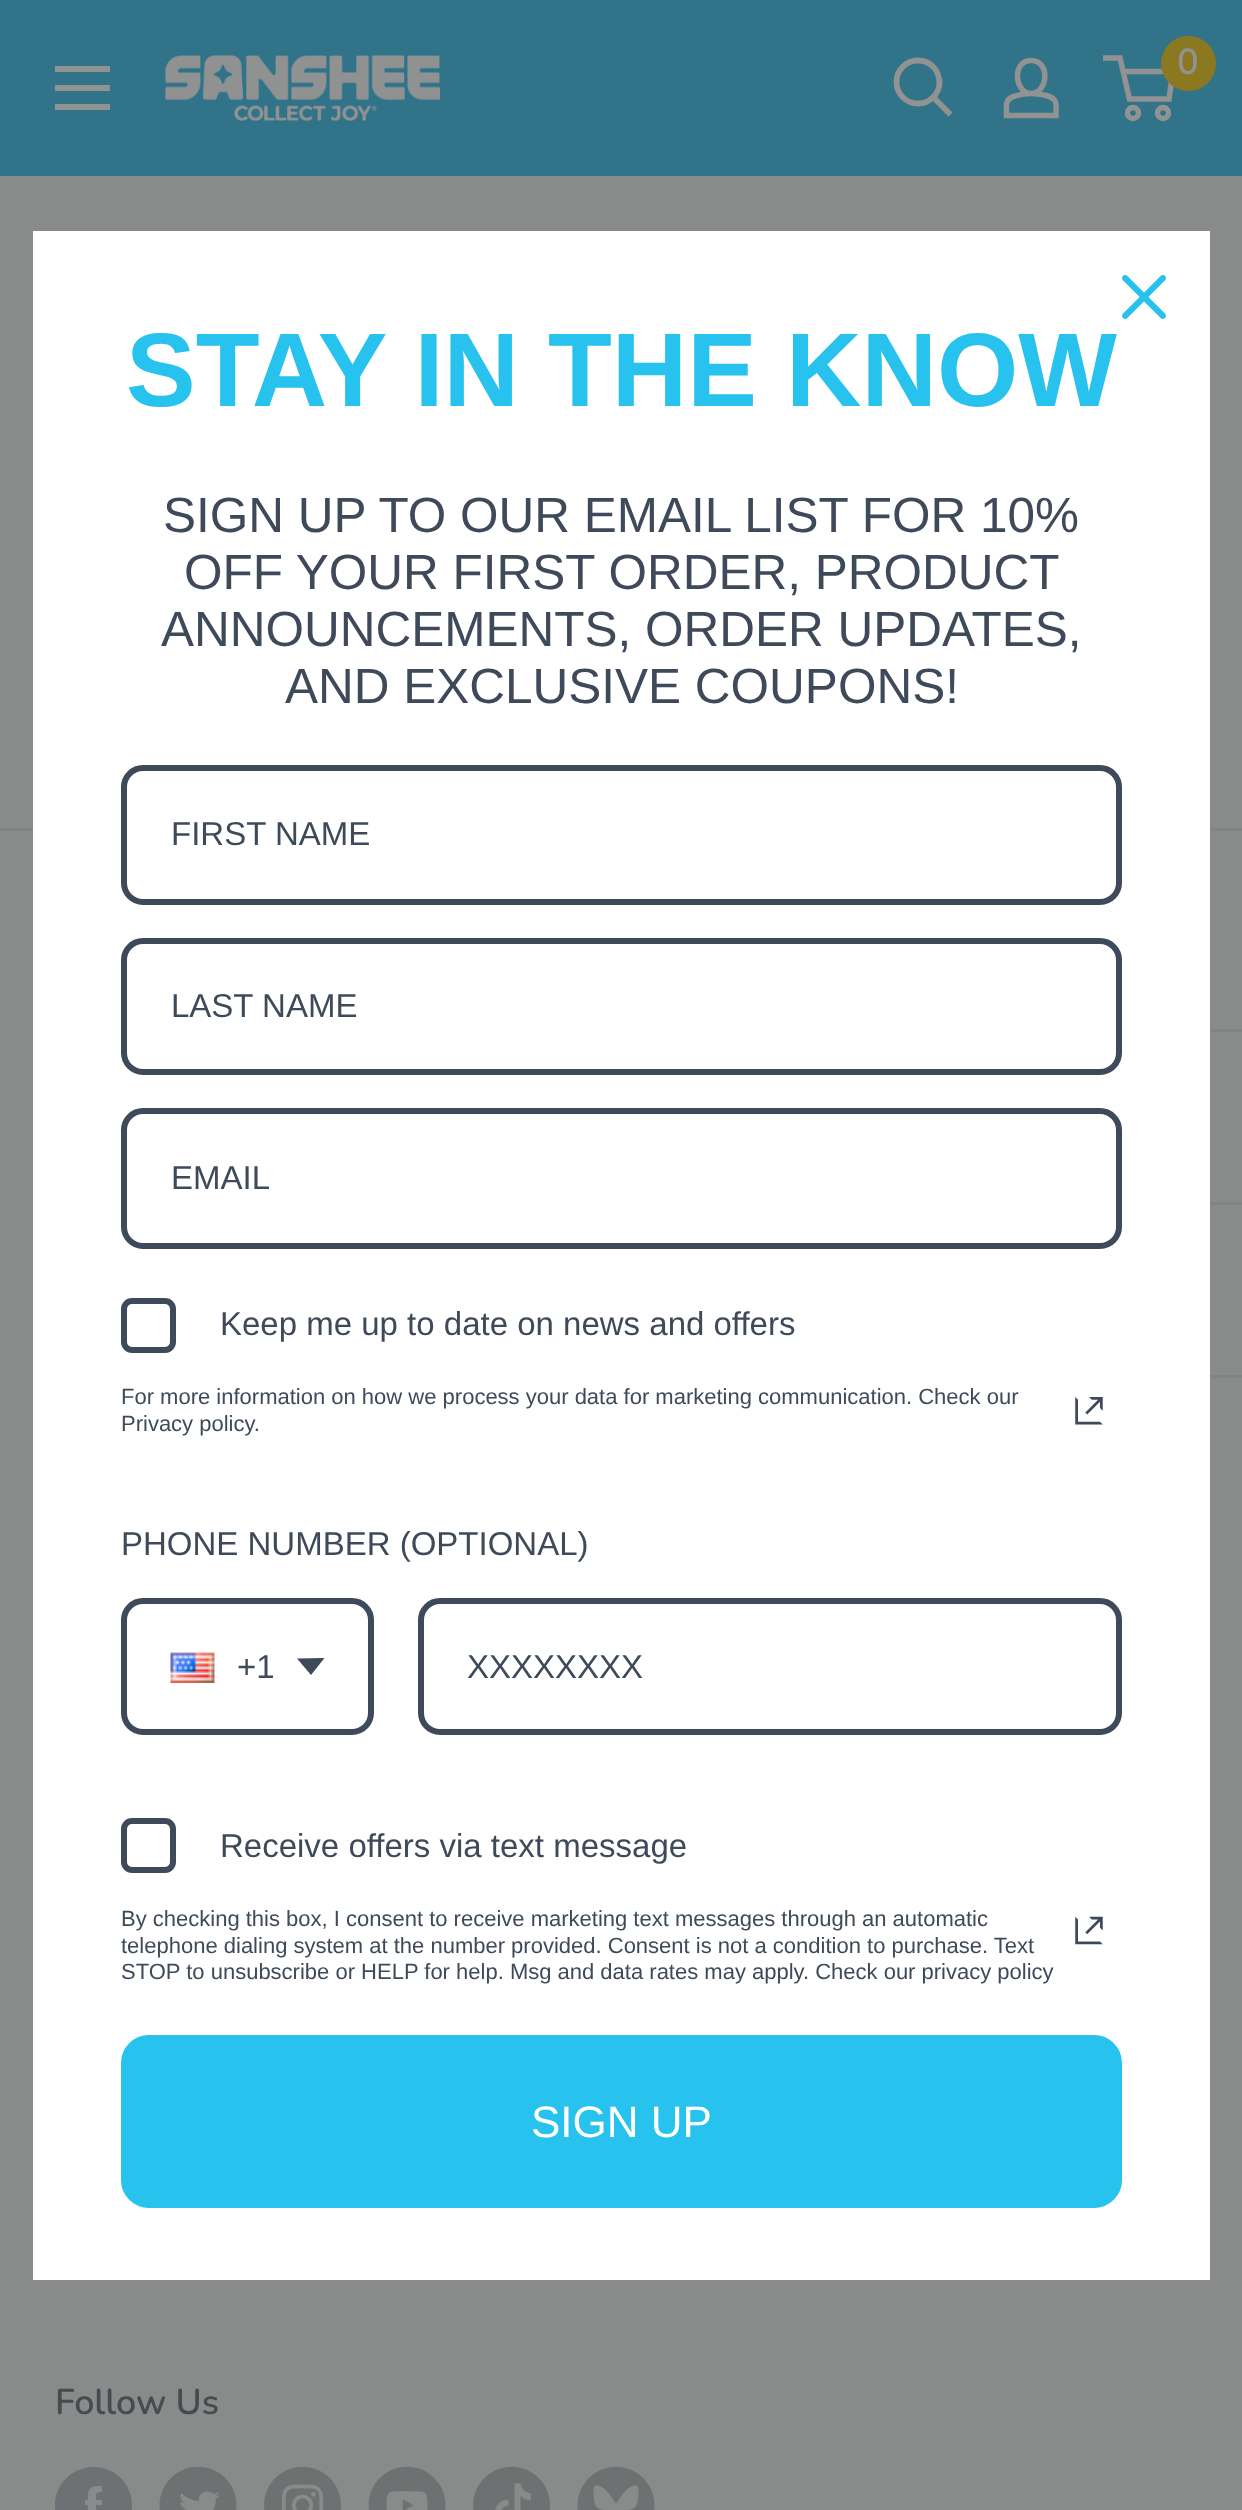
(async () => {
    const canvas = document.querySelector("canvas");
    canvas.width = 1242;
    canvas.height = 2510;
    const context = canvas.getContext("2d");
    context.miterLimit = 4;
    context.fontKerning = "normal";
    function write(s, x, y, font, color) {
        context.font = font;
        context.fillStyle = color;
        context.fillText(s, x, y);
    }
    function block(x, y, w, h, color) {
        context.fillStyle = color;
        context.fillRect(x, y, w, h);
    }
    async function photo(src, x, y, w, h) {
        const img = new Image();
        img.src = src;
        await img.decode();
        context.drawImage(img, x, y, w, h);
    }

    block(0, 0, 1242, 2510, "rgb(137, 139, 139)");
    block(0, 0, 1242, 176, "rgb(49, 115, 137)");
    context.fillStyle = "rgb(145, 146, 146)";
    context.beginPath();
    context.moveTo(55, 104);
    context.lineTo(110, 104);
    context.lineTo(110, 110);
    context.lineTo(55, 110);
    context.closePath();
    context.moveTo(55, 66);
    context.lineTo(110, 66);
    context.lineTo(110, 72);
    context.lineTo(55, 72);
    context.closePath();
    context.moveTo(55, 85);
    context.lineTo(110, 85);
    context.lineTo(110, 91);
    context.lineTo(55, 91);
    context.closePath();
    context.fill("evenodd");
    await photo("media/1.png", 165, 55, 275, 66);
    context.beginPath();
    context.moveTo(948.5, 112.5);
    context.lineTo(934, 98);
    context.strokeStyle = "rgb(145, 146, 146)";
    context.lineWidth = 5.8;
    context.lineCap = "square";
    context.stroke();
    context.beginPath();
    context.arc(918, 82, 21.5, 0, Math.PI * 2);
    context.stroke();
    context.beginPath();
    context.moveTo(1031, 93.5);
    context.bezierCurveTo(1036.5, 93.5, 1041.5, 94.5, 1046.5, 95.5);
    context.bezierCurveTo(1058.5, 99, 1056, 105, 1056, 115.5);
    context.lineTo(1006.5, 115.5);
    context.bezierCurveTo(1006.5, 104.5, 1004, 98.5, 1017, 95.5);
    context.bezierCurveTo(1021.5, 94, 1026.5, 93.5, 1031, 93.5);
    context.closePath();
    context.moveTo(1031, 93.5);
    context.bezierCurveTo(1014.5, 93.5, 1011.5, 60.5, 1031, 60.5);
    context.bezierCurveTo(1051, 60.5, 1048, 93.5, 1031, 93.5);
    context.closePath();
    context.lineWidth = 5.5;
    context.lineCap = "butt";
    context.stroke();
    context.beginPath();
    context.arc(1133, 113, 5.5, 0, Math.PI * 2);
    context.stroke();
    context.beginPath();
    context.arc(1163, 113, 5.5, 0, Math.PI * 2);
    context.stroke();
    context.beginPath();
    context.moveTo(1123, 71.5);
    context.lineTo(1173, 71.5);
    context.lineTo(1169, 99);
    context.lineTo(1129.5, 99);
    context.lineTo(1120, 58);
    context.lineTo(1103, 58);
    context.stroke();
    context.fillStyle = "rgb(138, 121, 32)";
    context.beginPath();
    context.arc(1188.5, 63.5, 27.5, 0, Math.PI * 2);
    context.fill();
    write("0", 1177, 74, "600 36px Nunito", "rgb(145, 146, 146)");
    block(0, 828, 1242, 3, "rgb(130, 132, 132)");
    block(33, 231, 1177, 2049, "rgb(255, 255, 255)");
    await photo("media/2.png", 1122, 275, 44, 44);
    write("STAY IN THE KNOW", 126, 406, "bold 104.5px Liberation Sans", "rgb(39, 194, 238)");
    write("SIGN UP TO OUR EMAIL LIST FOR 10%", 163, 532, "49.5px Liberation Sans", "rgb(62, 74, 89)");
    write("OFF YOUR FIRST ORDER, PRODUCT", 184, 589, "49.5px Liberation Sans", "rgb(62, 74, 89)");
    write("ANNOUNCEMENTS, ORDER UPDATES,", 161, 646, "49.5px Liberation Sans", "rgb(62, 74, 89)");
    write("AND EXCLUSIVE COUPONS!", 285, 703, "49.5px Liberation Sans", "rgb(62, 74, 89)");
    context.beginPath();
    context.roundRect(124, 768, 995, 134, 19);
    context.strokeStyle = "rgb(62, 74, 89)";
    context.lineWidth = 6;
    context.stroke();
    write("FIRST NAME", 171, 845, "33px Liberation Sans", "rgb(62, 74, 89)");
    context.beginPath();
    context.roundRect(124, 941, 995, 131, 19);
    context.stroke();
    write("LAST NAME", 171, 1017, "33px Liberation Sans", "rgb(62, 74, 89)");
    context.beginPath();
    context.roundRect(124, 1111, 995, 135, 19);
    context.stroke();
    write("EMAIL", 171, 1189, "33px Liberation Sans", "rgb(62, 74, 89)");
    context.beginPath();
    context.roundRect(124, 1301, 49, 49, 8);
    context.stroke();
    write("Keep me up to date on news and offers", 220, 1335, "33px Liberation Sans", "rgb(62, 74, 89)");
    write("For more information on how we process your data for marketing communication. Check our", 121, 1404, "22px Liberation Sans", "rgb(62, 74, 89)");
    write("Privacy policy.", 121, 1431, "22px Liberation Sans", "rgb(62, 74, 89)");
    await photo("media/3.png", 1075, 1397, 28, 28);
    write("PHONE NUMBER (OPTIONAL)", 121, 1555, "33px Liberation Sans", "rgb(62, 74, 89)");
    context.beginPath();
    context.roundRect(124, 1601, 247, 131, 19);
    context.stroke();
    await photo("media/4.png", 170, 1652, 45, 31);
    write("+1", 237, 1678, "33px Liberation Sans", "rgb(62, 74, 89)");
    context.beginPath();
    context.moveTo(297, 1658.5);
    context.lineTo(324.5, 1658);
    context.lineTo(311, 1675);
    context.closePath();
    context.fill("evenodd");
    context.beginPath();
    context.roundRect(421, 1601, 698, 131, 19);
    context.stroke();
    write("XXXXXXXX", 467, 1678, "33px Liberation Sans", "rgb(62, 74, 89)");
    context.beginPath();
    context.roundRect(124, 1821, 49, 49, 8);
    context.stroke();
    write("Receive offers via text message", 220, 1857, "33px Liberation Sans", "rgb(62, 74, 89)");
    write("By checking this box, I consent to receive marketing text messages through an automatic", 121, 1926, "22px Liberation Sans", "rgb(62, 74, 89)");
    write("telephone dialing system at the number provided. Consent is not a condition to purchase. Text", 121, 1953, "22px Liberation Sans", "rgb(62, 74, 89)");
    write("STOP to unsubscribe or HELP for help. Msg and data rates may apply. Check our privacy policy", 121, 1979, "22px Liberation Sans", "rgb(62, 74, 89)");
    await photo("media/5.png", 1075, 1916, 28, 29);
    context.fillStyle = "rgb(39, 194, 238)";
    context.beginPath();
    context.roundRect(135, 2049, 973, 145, 14);
    context.fill();
    context.strokeStyle = "rgb(39, 194, 238)";
    context.lineWidth = 28;
    context.stroke();
    write("SIGN UP", 531, 2137, "44px Liberation Sans", "rgb(255, 255, 255)");
    block(1210, 1029, 32, 3, "rgb(130, 132, 132)");
    block(1210, 1202, 32, 3, "rgb(130, 132, 132)");
    block(1210, 1375, 32, 3, "rgb(130, 132, 132)");
    write("Follow Us", 55, 2414, "600 35.75px Nunito", "rgb(69, 75, 79)");
    context.fillStyle = "rgb(110, 113, 115)";
    context.beginPath();
    context.moveTo(94, 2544);
    context.bezierCurveTo(72, 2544, 55, 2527, 55, 2505);
    context.bezierCurveTo(55, 2484, 72, 2467, 94, 2467);
    context.bezierCurveTo(115, 2467, 132, 2484, 132, 2505);
    context.bezierCurveTo(132, 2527, 115, 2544, 94, 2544);
    context.closePath();
    context.moveTo(102, 2500);
    context.lineTo(96, 2500);
    context.bezierCurveTo(96, 2494, 95, 2492, 102, 2492);
    context.lineTo(102, 2486);
    context.bezierCurveTo(89, 2486, 88, 2488, 88, 2500);
    context.lineTo(85, 2500);
    context.lineTo(85, 2505);
    context.lineTo(88, 2505);
    context.lineTo(88, 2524);
    context.lineTo(96, 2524);
    context.lineTo(96, 2505);
    context.lineTo(102, 2505);
    context.closePath();
    context.fill("evenodd");
    await photo("media/6.png", 159, 2466, 78, 44);
    await photo("media/7.png", 264, 2466, 77, 44);
    await photo("media/8.png", 368, 2466, 78, 44);
    await photo("media/9.png", 473, 2466, 77, 44);
    await photo("media/10.png", 577, 2466, 78, 44);
})();
